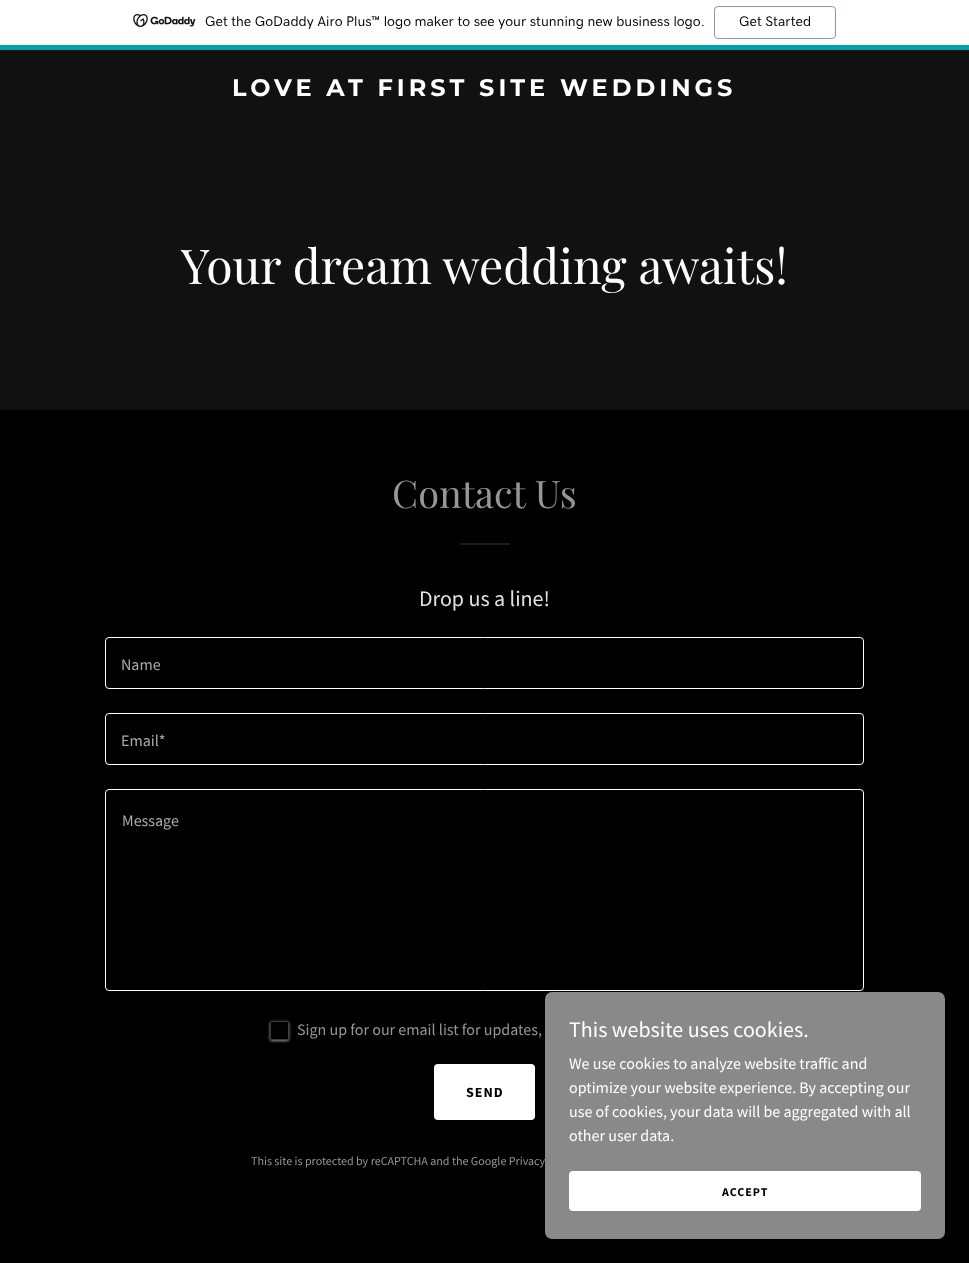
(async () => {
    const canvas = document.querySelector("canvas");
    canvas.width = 969;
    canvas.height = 1263;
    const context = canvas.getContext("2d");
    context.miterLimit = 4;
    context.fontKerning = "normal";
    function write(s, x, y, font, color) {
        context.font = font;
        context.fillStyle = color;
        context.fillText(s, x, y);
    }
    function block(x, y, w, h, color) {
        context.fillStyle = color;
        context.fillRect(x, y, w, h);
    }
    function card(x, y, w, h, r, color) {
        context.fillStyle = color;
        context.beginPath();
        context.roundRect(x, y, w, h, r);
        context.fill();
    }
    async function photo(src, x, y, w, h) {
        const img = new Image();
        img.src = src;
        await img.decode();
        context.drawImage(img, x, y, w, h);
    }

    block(0, 0, 969, 1263, "rgb(0, 0, 0)");
    block(0, 0, 969, 45, "rgb(255, 255, 255)");
    block(0, 45, 969, 5, "rgb(0, 164, 166)");
    await photo("media/1.png", 133, 14, 63, 13);
    write("Get the GoDaddy Airo Plus™ logo maker to see your stunning new business logo.", 205, 26, "500 14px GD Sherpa", "rgb(0, 0, 0)");
    context.beginPath();
    context.roundRect(714.5, 6.5, 121, 32, 3.5);
    context.strokeStyle = "rgb(137, 149, 169)";
    context.stroke();
    write("Get Started", 739, 26, "500 14px GD Sherpa", "rgb(0, 0, 0)");
    block(0, 50, 969, 360, "rgb(17, 17, 17)");
    context.letterSpacing = "4px";
    write("LOVE AT FIRST SITE WEDDINGS", 232, 96, "bold 24px Montserrat", "rgb(255, 255, 255)");
    context.letterSpacing = "0px";
    write("Your dream wedding awaits!", 181, 284, "48px Playfair Display", "rgb(255, 255, 255)");
    write("Contact Us", 392, 508, "38px Playfair Display", "rgb(150, 150, 150)");
    block(460, 543, 50, 2, "rgb(27, 27, 27)");
    write("Drop us a line!", 419, 606, "22px Source Sans Pro", "rgb(226, 226, 226)");
    context.beginPath();
    context.roundRect(105.5, 637.5, 758, 51, 3.5);
    context.strokeStyle = "rgb(255, 255, 255)";
    context.stroke();
    write("Name", 121, 670, "16px Source Sans Pro", "rgb(171, 171, 171)");
    context.beginPath();
    context.roundRect(105.5, 713.5, 758, 51, 3.5);
    context.stroke();
    write("Email*", 121, 746, "16px Source Sans Pro", "rgb(171, 171, 171)");
    context.beginPath();
    context.roundRect(105.5, 789.5, 758, 201, 3.5);
    context.stroke();
    write("Message", 122, 826, "16px Source Sans Pro", "rgb(171, 171, 171)");
    context.save();
    context.beginPath();
    context.moveTo(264, 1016);
    context.lineTo(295, 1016);
    context.lineTo(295, 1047);
    context.lineTo(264, 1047);
    context.closePath();
    context.moveTo(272, 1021);
    context.lineTo(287, 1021);
    context.bezierCurveTo(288, 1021, 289, 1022, 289, 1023);
    context.lineTo(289, 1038);
    context.bezierCurveTo(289, 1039, 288, 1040, 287, 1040);
    context.lineTo(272, 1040);
    context.bezierCurveTo(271, 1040, 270, 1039, 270, 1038);
    context.lineTo(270, 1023);
    context.bezierCurveTo(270, 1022, 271, 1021, 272, 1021);
    context.closePath();
    context.clip("evenodd");
    context.fillStyle = "rgb(150, 150, 150)";
    context.filter = "blur(1.5px)";
    context.beginPath();
    context.roundRect(270, 1022, 19, 19, 2);
    context.fill();
    context.filter = "none";
    context.restore();
    context.beginPath();
    context.roundRect(270.5, 1021.5, 18, 18, 1.5);
    context.strokeStyle = "rgba(119, 119, 119, 0.5)";
    context.stroke();
    write("Sign up for our email list for updates,", 297, 1035, "16px Source Sans Pro", "rgb(150, 150, 150)");
    card(434, 1064, 101, 56, 4, "rgb(255, 255, 255)");
    context.letterSpacing = "1px";
    write("SEND", 466, 1097, "bold 14px Source Sans Pro", "rgb(0, 0, 0)");
    context.letterSpacing = "0px";
    write("This site is protected by reCAPTCHA and the Google Privacy", 251, 1165, "12px Source Sans Pro", "rgb(150, 150, 150)");
    context.fillStyle = "rgba(0, 0, 0, 0.3)";
    context.filter = "blur(3px)";
    context.beginPath();
    context.roundRect(545, 994, 400, 247, 7);
    context.fill();
    context.filter = "none";
    card(545, 992, 400, 247, 7, "rgb(137, 137, 137)");
    write("This website uses cookies.", 569, 1037, "22px Source Sans Pro", "rgb(255, 255, 255)");
    write("We use cookies to analyze website traffic and", 569, 1069, "16px Source Sans Pro", "rgb(255, 255, 255)");
    write("optimize your website experience. By accepting our", 569, 1093, "16px Source Sans Pro", "rgb(255, 255, 255)");
    write("use of cookies, your data will be aggregated with all", 569, 1117, "16px Source Sans Pro", "rgb(255, 255, 255)");
    write("other user data.", 569, 1141, "16px Source Sans Pro", "rgb(255, 255, 255)");
    card(569, 1171, 352, 40, 4, "rgb(255, 255, 255)");
    context.letterSpacing = "1px";
    write("ACCEPT", 722, 1196, "bold 12px Source Sans Pro", "rgb(0, 0, 0)");
})();
